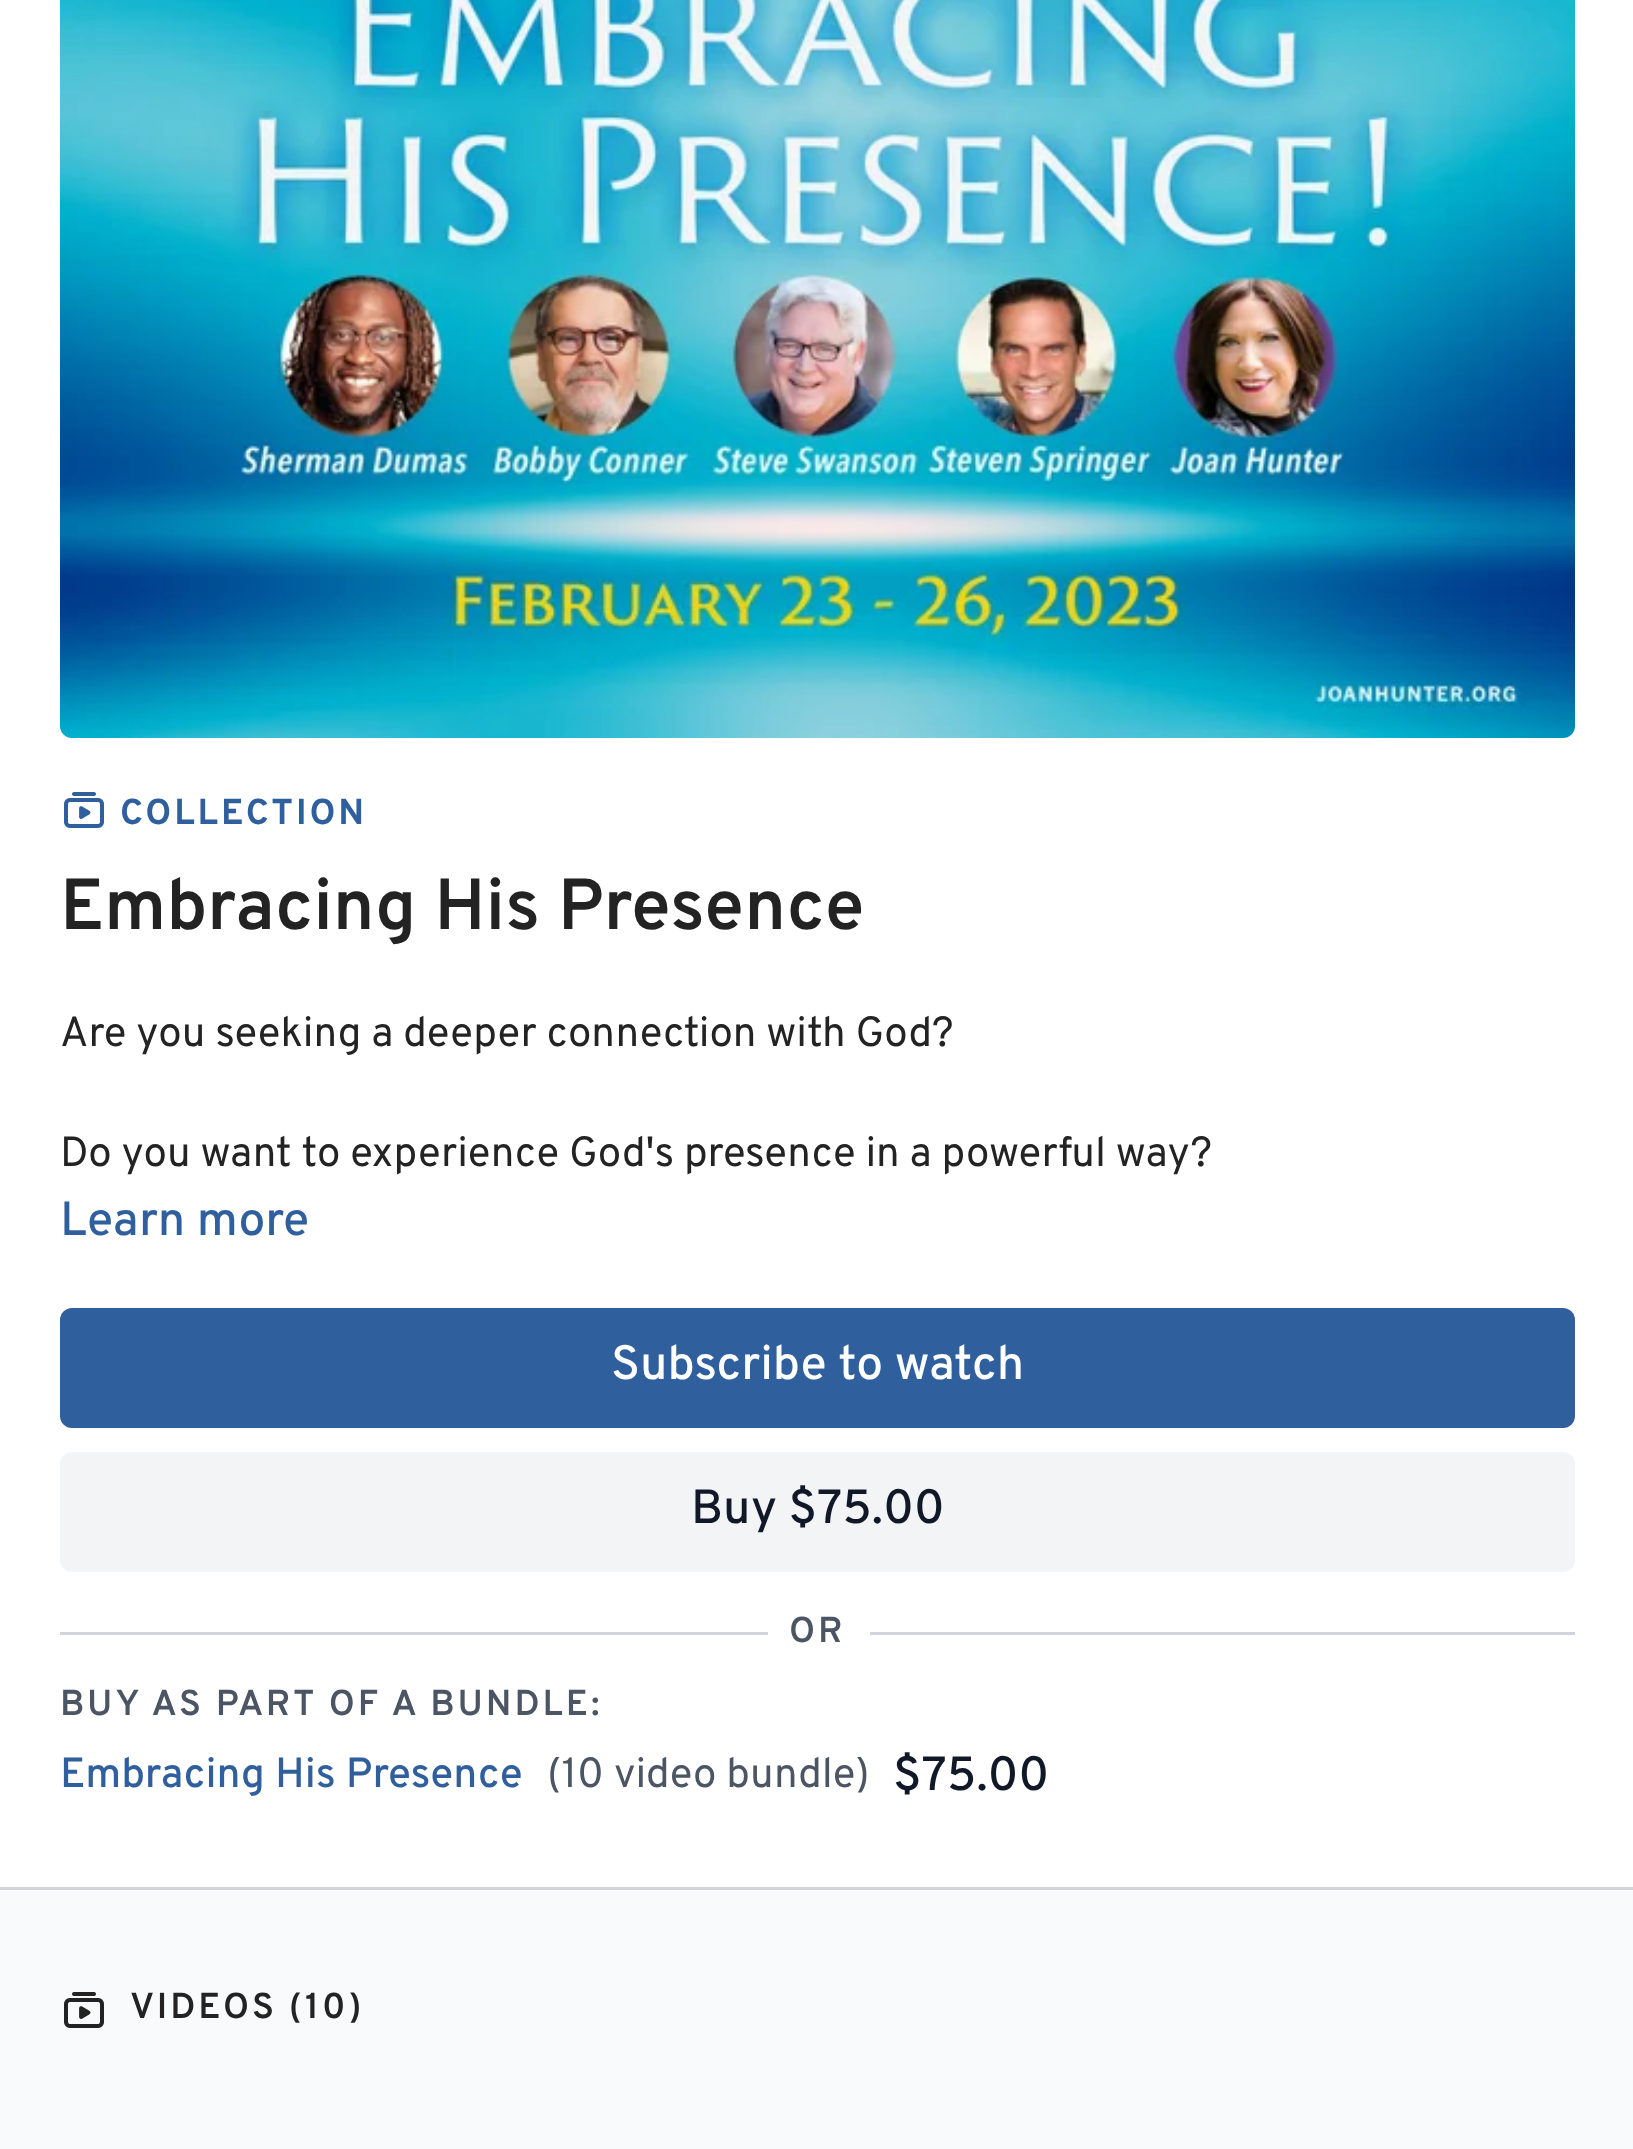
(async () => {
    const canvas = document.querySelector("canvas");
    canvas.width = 1633;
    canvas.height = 2149;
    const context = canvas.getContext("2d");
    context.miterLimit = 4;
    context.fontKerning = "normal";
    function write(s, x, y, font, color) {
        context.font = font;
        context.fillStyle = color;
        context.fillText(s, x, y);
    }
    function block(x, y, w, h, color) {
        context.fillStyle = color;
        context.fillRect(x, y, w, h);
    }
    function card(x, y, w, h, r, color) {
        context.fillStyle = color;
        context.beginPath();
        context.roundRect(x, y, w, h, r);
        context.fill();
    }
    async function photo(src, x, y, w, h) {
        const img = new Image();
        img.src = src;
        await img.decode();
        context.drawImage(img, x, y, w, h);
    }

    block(0, 0, 1633, 2149, "rgb(255, 255, 255)");
    await photo("media/1.png", 60, 0, 1515, 738);
    await photo("media/2.png", 64, 792, 40, 36);
    context.letterSpacing = "3px";
    write("COLLECTION", 120, 824, "bold 36px Overpass", "rgb(48, 95, 157)");
    context.letterSpacing = "0px";
    write("Embracing His Presence", 60, 929, "600 72px Overpass", "rgb(35, 35, 35)");
    write("Are you seeking a deeper connection with God?", 60, 1046, "42px Overpass", "rgb(35, 35, 35)");
    write("Do you want to experience God's presence in a powerful way?", 60, 1166, "42px Overpass", "rgb(35, 35, 35)");
    write("Learn more", 60, 1235, "500 48px Overpass", "rgb(48, 95, 157)");
    card(60, 1308, 1515, 120, 12, "rgb(48, 95, 157)");
    write("Subscribe to watch", 611, 1379, "500 48px Overpass", "rgb(255, 255, 255)");
    card(60, 1452, 1515, 120, 12, "rgb(243, 244, 246)");
    write("Buy $75.00", 691, 1523, "500 48px Overpass", "rgb(17, 24, 39)");
    block(60, 1632, 1515, 3, "rgb(209, 213, 219)");
    block(768, 1632, 102, 3, "rgb(255, 255, 255)");
    context.letterSpacing = "3px";
    write("OR", 789, 1642, "600 36px Overpass", "rgb(75, 85, 99)");
    write("BUY AS PART OF A BUNDLE:", 60, 1715, "600 36px Overpass", "rgb(75, 85, 99)");
    context.letterSpacing = "0px";
    write("Embracing His Presence", 60, 1787, "500 42px Overpass", "rgb(48, 95, 157)");
    write("(10 video bundle)", 547, 1787, "42px Overpass", "rgb(75, 85, 99)");
    write("$75.00", 893, 1790, "500 48px Overpass", "rgb(17, 24, 39)");
    block(0, 1890, 1633, 259, "rgb(249, 250, 251)");
    block(0, 1887, 1633, 3, "rgb(209, 213, 219)");
    await photo("media/3.png", 64, 1992, 40, 36);
    context.letterSpacing = "3px";
    write("VIDEOS (10)", 130, 2018, "600 36px Overpass", "rgb(35, 35, 35)");
})();
